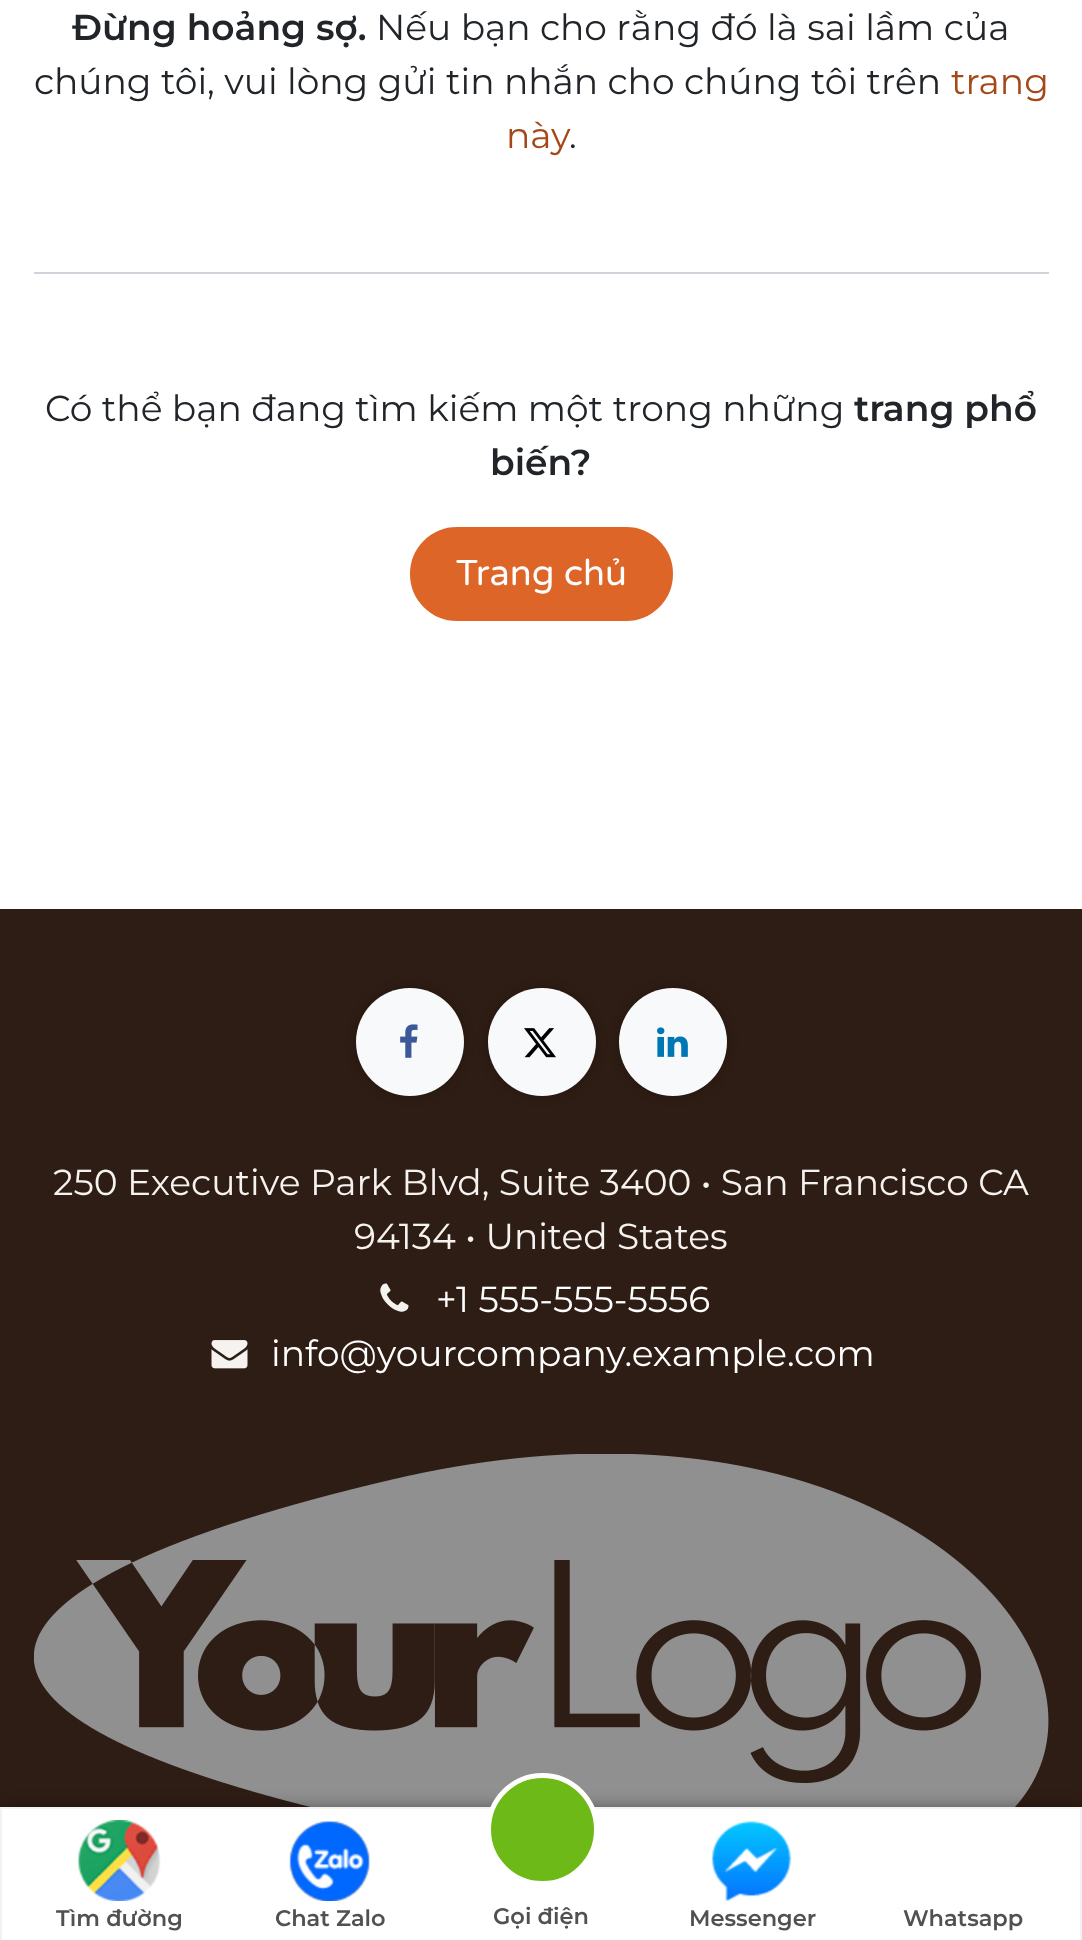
(async () => {
    const canvas = document.querySelector("canvas");
    canvas.width = 1082;
    canvas.height = 1940;
    const context = canvas.getContext("2d");
    context.miterLimit = 4;
    context.fontKerning = "normal";
    function write(s, x, y, font, color) {
        context.font = font;
        context.fillStyle = color;
        context.fillText(s, x, y);
    }
    function block(x, y, w, h, color) {
        context.fillStyle = color;
        context.fillRect(x, y, w, h);
    }
    async function photo(src, x, y, w, h) {
        const img = new Image();
        img.src = src;
        await img.decode();
        context.drawImage(img, x, y, w, h);
    }

    block(0, 0, 1082, 1940, "rgb(255, 255, 255)");
    write("Đừng hoảng sợ.", 72, 40, "600 36px Montserrat", "rgb(33, 37, 41)");
    write("Nếu bạn cho rằng đó là sai lầm của", 376, 40, "36px Montserrat", "rgb(33, 37, 41)");
    write("chúng tôi, vui lòng gửi tin nhắn cho chúng tôi trên", 34, 94, "36px Montserrat", "rgb(33, 37, 41)");
    write("trang", 951, 94, "36px Montserrat", "rgb(165, 72, 25)");
    write("này", 506, 148, "36px Montserrat", "rgb(165, 72, 25)");
    write(".", 569, 148, "36px Montserrat", "rgb(33, 37, 41)");
    block(34, 272, 1015, 2, "rgb(206, 212, 218)");
    write("Có thể bạn đang tìm kiếm một trong những", 45, 421, "36px Montserrat", "rgb(33, 37, 41)");
    write("trang phổ", 854, 421, "600 36px Montserrat", "rgb(33, 37, 41)");
    write("biến?", 490, 475, "600 36px Montserrat", "rgb(33, 37, 41)");
    context.fillStyle = "rgb(222, 101, 40)";
    context.beginPath();
    context.roundRect(411, 528, 261, 92, 46);
    context.fill();
    context.strokeStyle = "rgb(222, 101, 40)";
    context.lineWidth = 2;
    context.stroke();
    write("Trang chủ", 456, 585, "36px Varela Round", "rgb(255, 255, 255)");
    block(0, 909, 1082, 898, "rgb(46, 29, 20)");
    context.fillStyle = "rgba(0, 0, 0, 0.25)";
    context.filter = "blur(5.5px)";
    context.beginPath();
    context.roundRect(356, 988, 108, 108, 54);
    context.fill();
    context.filter = "none";
    context.fillStyle = "rgb(248, 249, 250)";
    context.beginPath();
    context.arc(410, 1042, 54, 0, Math.PI * 2);
    context.fill();
    await photo("media/1.png", 400, 1024, 18, 34);
    context.fillStyle = "rgba(0, 0, 0, 0.25)";
    context.filter = "blur(5.5px)";
    context.beginPath();
    context.roundRect(488, 988, 108, 108, 54);
    context.fill();
    context.filter = "none";
    context.fillStyle = "rgb(248, 249, 250)";
    context.beginPath();
    context.arc(542, 1042, 54, 0, Math.PI * 2);
    context.fill();
    await photo("media/2.png", 524, 1028, 32, 30);
    context.fillStyle = "rgba(0, 0, 0, 0.25)";
    context.filter = "blur(5.5px)";
    context.beginPath();
    context.roundRect(619, 988, 108, 108, 54);
    context.fill();
    context.filter = "none";
    context.fillStyle = "rgb(248, 249, 250)";
    context.beginPath();
    context.arc(673, 1042, 54, 0, Math.PI * 2);
    context.fill();
    await photo("media/3.png", 657, 1027, 31, 30);
    write("250 Executive Park Blvd, Suite 3400 • San Francisco CA", 53, 1195, "36px Montserrat", "rgb(245, 242, 240)");
    write("94134 • United States", 354, 1249, "36px Montserrat", "rgb(245, 242, 240)");
    await photo("media/4.png", 380, 1283, 29, 29);
    write("+1 555-555-5556", 436, 1312, "36px Montserrat", "rgb(255, 255, 255)");
    await photo("media/5.png", 211, 1340, 37, 29);
    write("info@yourcompany.example.com", 271, 1366, "36px Montserrat", "rgb(255, 255, 255)");
    await photo("media/6.png", 34, 1454, 1015, 353);
    context.fillStyle = "rgb(0, 0, 0)";
    context.filter = "blur(11px)";
    context.beginPath();
    context.rect(0, 1816, 1082, 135);
    context.fill();
    context.filter = "none";
    context.fillStyle = "rgb(255, 255, 255)";
    context.beginPath();
    context.rect(1, 1808, 1080, 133);
    context.fill();
    context.strokeStyle = "rgb(242, 242, 242)";
    context.stroke();
    await photo("media/7.png", 78, 1820, 83, 81);
    write("Tìm đường", 56, 1926, "600 22.5px Montserrat", "rgb(81, 81, 81)");
    await photo("media/8.png", 289, 1821, 81, 80);
    write("Chat Zalo", 275, 1926, "600 22.5px Montserrat", "rgb(81, 81, 81)");
    context.fillStyle = "rgb(108, 185, 23)";
    context.beginPath();
    context.arc(542.5, 1829.5, 54, 0, Math.PI * 2);
    context.fill();
    context.strokeStyle = "rgb(255, 255, 255)";
    context.lineWidth = 5;
    context.stroke();
    write("Gọi điện", 493, 1924, "600 22.5px Montserrat", "rgb(81, 81, 81)");
    await photo("media/9.png", 711, 1821, 81, 80);
    write("Messenger", 689, 1926, "600 22.5px Montserrat", "rgb(81, 81, 81)");
    write("Whatsapp", 903, 1926, "600 22.5px Montserrat", "rgb(81, 81, 81)");
})();
